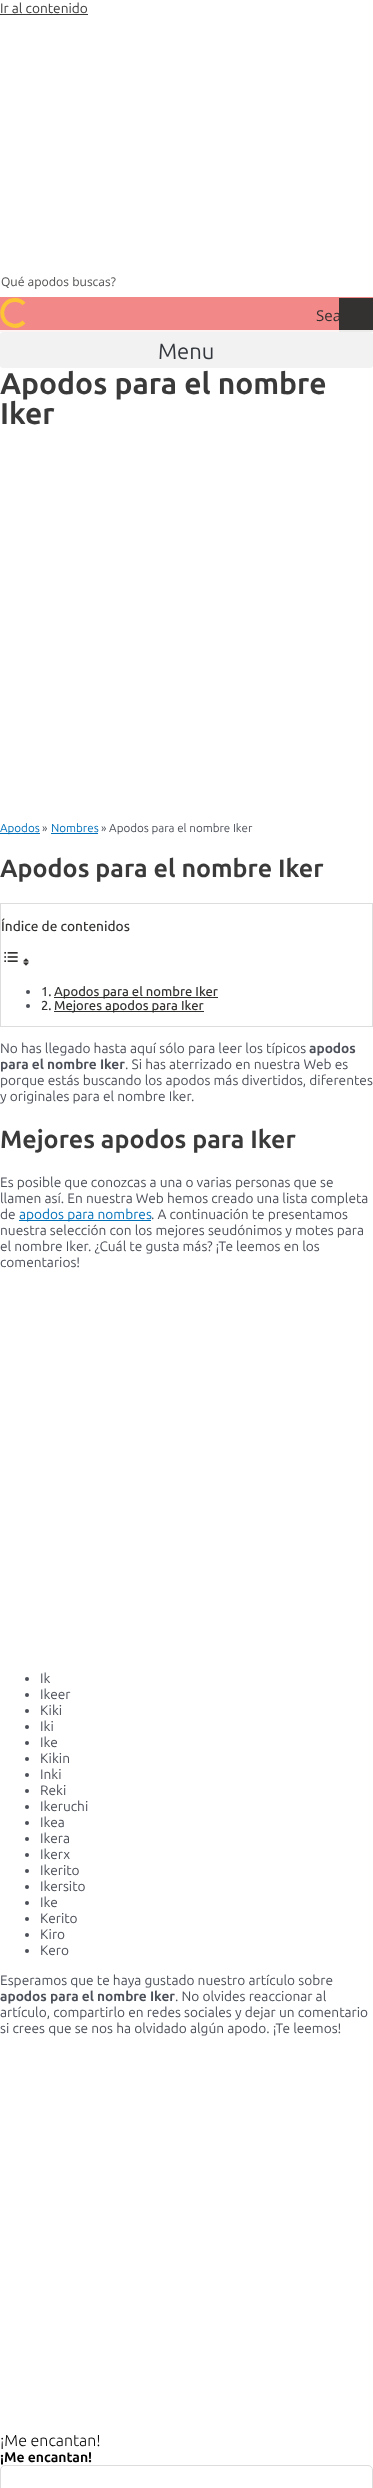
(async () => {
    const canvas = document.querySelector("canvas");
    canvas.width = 373;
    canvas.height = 2488;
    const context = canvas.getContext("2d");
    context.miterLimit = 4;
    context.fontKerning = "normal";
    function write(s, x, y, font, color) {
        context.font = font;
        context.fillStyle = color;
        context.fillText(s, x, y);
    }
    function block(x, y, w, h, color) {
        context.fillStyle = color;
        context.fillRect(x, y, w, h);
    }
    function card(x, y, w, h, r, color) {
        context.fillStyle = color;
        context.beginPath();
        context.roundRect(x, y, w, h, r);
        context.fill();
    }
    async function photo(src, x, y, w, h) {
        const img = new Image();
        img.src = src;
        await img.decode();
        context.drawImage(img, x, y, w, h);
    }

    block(0, 0, 373, 2488, "rgb(255, 255, 255)");
    write("Ir al contenido", 0, 13, "13.7px Ubuntu", "rgb(58, 58, 58)");
    block(0, 14, 88, 1, "rgb(58, 58, 58)");
    block(0, 297, 373, 35, "rgb(243, 136, 136)");
    write("Qué apodos buscas?", 1, 286, "12px Open Sans", "rgb(82, 81, 80)");
    context.beginPath();
    context.moveTo(24, 322);
    context.bezierCurveTo(21, 325, 16.5, 326.5, 12.5, 325.5);
    context.bezierCurveTo(-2.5, 322.5, -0.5, 300, 15, 300);
    context.bezierCurveTo(18.5, 300, 22, 301.5, 24, 304);
    context.strokeStyle = "rgb(253, 196, 54)";
    context.lineWidth = 4;
    context.stroke();
    block(339, 298, 34, 34, "rgb(51, 50, 49)");
    write("Sea", 316, 321, "15px Open Sans", "rgb(51, 50, 49)");
    card(0, 332, 373, 36, 3, "rgb(242, 242, 242)");
    block(0, 833, 40, 1, "rgb(1, 112, 185)");
    block(51, 833, 47, 1, "rgb(1, 112, 185)");
    context.save();
    context.beginPath();
    context.rect(0, 263, 373, 69);
    context.clip();
    context.strokeStyle = "rgba(255, 255, 255, 0.9)";
    context.lineWidth = 2;
    context.strokeRect(-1, 331, 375, 514);
    context.restore();
    write("Menu", 158, 359, "22px Ubuntu", "rgb(51, 55, 61)");
    write("Apodos para el nombre", 0, 394, "bold 30px Ubuntu", "rgb(58, 58, 58)");
    write("Iker", 0, 424, "bold 30px Ubuntu", "rgb(58, 58, 58)");
    write("Apodos", 0, 832, "11.6px Ubuntu", "rgb(1, 112, 185)");
    write("»", 42, 832, "11.6px Ubuntu", "rgb(75, 79, 88)");
    write("Nombres", 51, 832, "11.6px Ubuntu", "rgb(1, 112, 185)");
    write("» Apodos para el nombre Iker", 101, 832, "11.6px Ubuntu", "rgb(75, 79, 88)");
    write("Apodos para el nombre Iker", 0, 877, "bold 25px Ubuntu", "rgb(58, 58, 58)");
    context.strokeStyle = "rgb(221, 221, 221)";
    context.lineWidth = 1;
    context.strokeRect(0.5, 903.5, 372, 123);
    write("Índice de contenidos", 1, 931, "500 13.7px Ubuntu", "rgb(51, 50, 49)");
    await photo("media/1.png", 4, 952, 14, 10);
    await photo("media/2.png", 23, 958, 6, 8);
    context.fillStyle = "rgb(75, 79, 88)";
    context.beginPath();
    context.arc(28, 992, 2, 0, Math.PI * 2);
    context.fill();
    write("1.", 41, 996, "500 13px Ubuntu", "rgb(51, 50, 49)");
    block(54, 997, 164, 1, "rgb(51, 50, 49)");
    write("Apodos para el nombre Iker", 54, 996, "500 13px Ubuntu", "rgb(51, 50, 49)");
    context.fillStyle = "rgb(75, 79, 88)";
    context.beginPath();
    context.arc(28, 1006, 2, 0, Math.PI * 2);
    context.fill();
    write("2.", 41, 1010, "500 13px Ubuntu", "rgb(51, 50, 49)");
    block(54, 1011, 150, 1, "rgb(51, 50, 49)");
    write("Mejores apodos para Iker", 54, 1010, "500 13px Ubuntu", "rgb(51, 50, 49)");
    write("No has llegado hasta aquí sólo para leer los típicos", 0, 1053, "13.7px Ubuntu", "rgb(75, 79, 88)");
    write("apodos", 309, 1053, "bold 13.7px Ubuntu", "rgb(75, 79, 88)");
    write("para el nombre Iker", 0, 1069, "bold 13.7px Ubuntu", "rgb(75, 79, 88)");
    write(". Si has aterrizado en nuestra Web es", 125, 1069, "13.7px Ubuntu", "rgb(75, 79, 88)");
    write("porque estás buscando los apodos más divertidos, diferentes", 0, 1085, "13.7px Ubuntu", "rgb(75, 79, 88)");
    write("y originales para el nombre Iker.", 0, 1101, "13.7px Ubuntu", "rgb(75, 79, 88)");
    write("Mejores apodos para Iker", 0, 1148, "bold 25px Ubuntu", "rgb(58, 58, 58)");
    write("Es posible que conozcas a una o varias personas que se", 0, 1187, "13.7px Ubuntu", "rgb(75, 79, 88)");
    write("llamen así. En nuestra Web hemos creado una lista completa", 0, 1203, "13.7px Ubuntu", "rgb(75, 79, 88)");
    write("de", 0, 1219, "13.7px Ubuntu", "rgb(75, 79, 88)");
    block(19, 1220, 132, 1, "rgb(1, 112, 185)");
    write("apodos para nombres", 19, 1219, "13.7px Ubuntu", "rgb(1, 112, 185)");
    write(". A continuación te presentamos", 151, 1219, "13.7px Ubuntu", "rgb(75, 79, 88)");
    write("nuestra selección con los mejores seudónimos y motes para", 0, 1235, "13.7px Ubuntu", "rgb(75, 79, 88)");
    write("el nombre Iker. ¿Cuál te gusta más? ¡Te leemos en los", 0, 1251, "13.7px Ubuntu", "rgb(75, 79, 88)");
    write("comentarios!", 0, 1267, "13.7px Ubuntu", "rgb(75, 79, 88)");
    context.beginPath();
    context.arc(27, 1679, 2, 0, Math.PI * 2);
    context.fill();
    write("Ik", 40, 1683, "13.7px Ubuntu", "rgb(75, 79, 88)");
    context.beginPath();
    context.arc(27, 1695, 2, 0, Math.PI * 2);
    context.fill();
    write("Ikeer", 40, 1699, "13.7px Ubuntu", "rgb(75, 79, 88)");
    context.beginPath();
    context.arc(27, 1711, 2, 0, Math.PI * 2);
    context.fill();
    write("Kiki", 40, 1715, "13.7px Ubuntu", "rgb(75, 79, 88)");
    context.beginPath();
    context.arc(27, 1727, 2, 0, Math.PI * 2);
    context.fill();
    write("Iki", 40, 1731, "13.7px Ubuntu", "rgb(75, 79, 88)");
    context.beginPath();
    context.arc(27, 1743, 2, 0, Math.PI * 2);
    context.fill();
    write("Ike", 40, 1747, "13.7px Ubuntu", "rgb(75, 79, 88)");
    context.beginPath();
    context.arc(27, 1759, 2, 0, Math.PI * 2);
    context.fill();
    write("Kikin", 40, 1763, "13.7px Ubuntu", "rgb(75, 79, 88)");
    context.beginPath();
    context.arc(27, 1775, 2, 0, Math.PI * 2);
    context.fill();
    write("Inki", 40, 1779, "13.7px Ubuntu", "rgb(75, 79, 88)");
    context.beginPath();
    context.arc(27, 1791, 2, 0, Math.PI * 2);
    context.fill();
    write("Reki", 40, 1795, "13.7px Ubuntu", "rgb(75, 79, 88)");
    context.beginPath();
    context.arc(27, 1807, 2, 0, Math.PI * 2);
    context.fill();
    write("Ikeruchi", 40, 1811, "13.7px Ubuntu", "rgb(75, 79, 88)");
    context.beginPath();
    context.arc(27, 1823, 2, 0, Math.PI * 2);
    context.fill();
    write("Ikea", 40, 1827, "13.7px Ubuntu", "rgb(75, 79, 88)");
    context.beginPath();
    context.arc(27, 1839, 2, 0, Math.PI * 2);
    context.fill();
    write("Ikera", 40, 1843, "13.7px Ubuntu", "rgb(75, 79, 88)");
    context.beginPath();
    context.arc(27, 1855, 2, 0, Math.PI * 2);
    context.fill();
    write("Ikerx", 40, 1859, "13.7px Ubuntu", "rgb(75, 79, 88)");
    context.beginPath();
    context.arc(27, 1871, 2, 0, Math.PI * 2);
    context.fill();
    write("Ikerito", 40, 1875, "13.7px Ubuntu", "rgb(75, 79, 88)");
    context.beginPath();
    context.arc(27, 1887, 2, 0, Math.PI * 2);
    context.fill();
    write("Ikersito", 40, 1891, "13.7px Ubuntu", "rgb(75, 79, 88)");
    context.beginPath();
    context.arc(27, 1903, 2, 0, Math.PI * 2);
    context.fill();
    write("Ike", 40, 1907, "13.7px Ubuntu", "rgb(75, 79, 88)");
    context.beginPath();
    context.arc(27, 1919, 2, 0, Math.PI * 2);
    context.fill();
    write("Kerito", 40, 1923, "13.7px Ubuntu", "rgb(75, 79, 88)");
    context.beginPath();
    context.arc(27, 1935, 2, 0, Math.PI * 2);
    context.fill();
    write("Kiro", 40, 1939, "13.7px Ubuntu", "rgb(75, 79, 88)");
    context.beginPath();
    context.arc(27, 1951, 2, 0, Math.PI * 2);
    context.fill();
    write("Kero", 40, 1955, "13.7px Ubuntu", "rgb(75, 79, 88)");
    write("Esperamos que te haya gustado nuestro artículo sobre", 0, 1985, "13.7px Ubuntu", "rgb(75, 79, 88)");
    write("apodos para el nombre Iker", 0, 2001, "bold 13.7px Ubuntu", "rgb(75, 79, 88)");
    write(". No olvides reaccionar al", 175, 2001, "13.7px Ubuntu", "rgb(75, 79, 88)");
    write("artículo, compartirlo en redes sociales y dejar un comentario", 0, 2017, "13.7px Ubuntu", "rgb(75, 79, 88)");
    write("si crees que se nos ha olvidado algún apodo. ¡Te leemos!", 0, 2033, "13.7px Ubuntu", "rgb(75, 79, 88)");
    write("¡Me encantan!", 0, 2446, "300 16px Ubuntu", "rgb(0, 0, 0)");
    write("¡Me encantan!", 0, 2462, "bold 14px Ubuntu", "rgb(0, 0, 0)");
    context.beginPath();
    context.roundRect(0.5, 2465.5, 372, 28, 4.5);
    context.stroke();
})();
